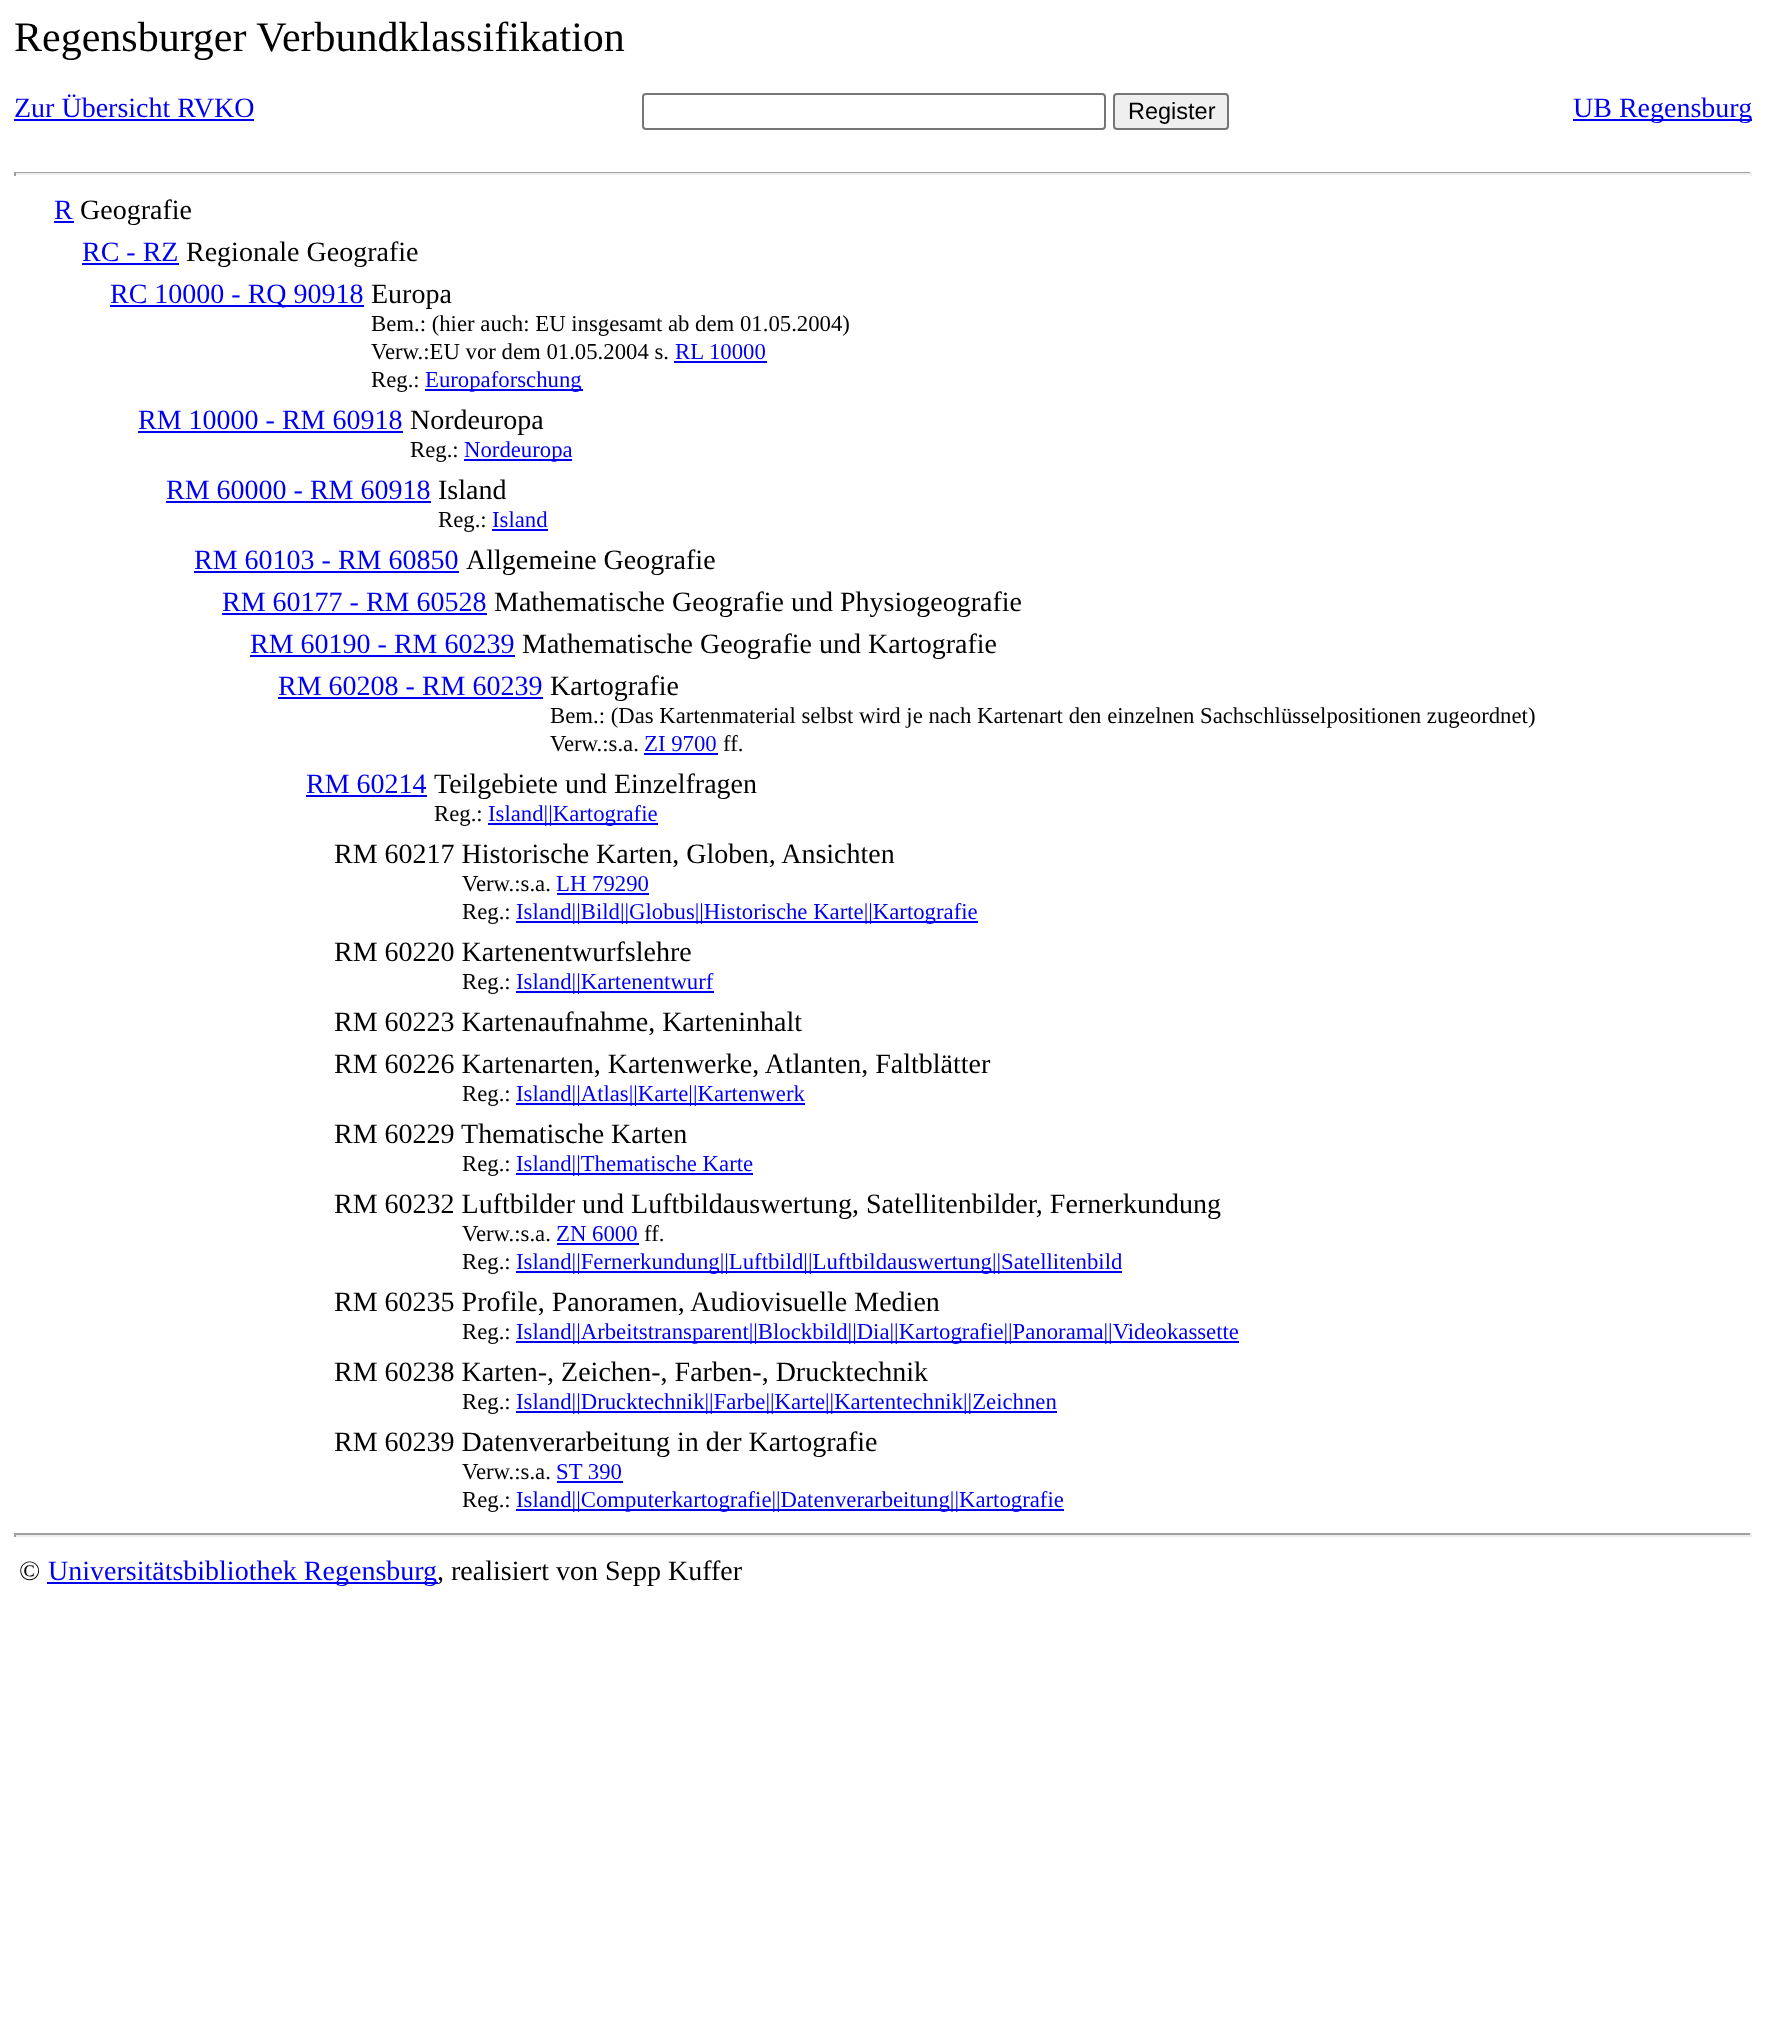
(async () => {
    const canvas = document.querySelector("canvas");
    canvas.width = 1765;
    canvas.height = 2036;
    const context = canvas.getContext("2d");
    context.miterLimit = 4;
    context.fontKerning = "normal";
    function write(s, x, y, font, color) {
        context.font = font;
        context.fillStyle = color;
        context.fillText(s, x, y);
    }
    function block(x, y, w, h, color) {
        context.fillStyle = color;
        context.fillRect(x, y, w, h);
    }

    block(0, 0, 1765, 2036, "rgb(255, 255, 255)");
    write("Regensburger Verbundklassifikation", 14, 51, "42px Liberation Serif", "rgb(0, 0, 0)");
    write("Zur Übersicht RVKO", 14, 117, "28px Liberation Serif", "rgb(0, 0, 238)");
    block(14, 119, 240, 2, "rgb(0, 0, 238)");
    context.beginPath();
    context.roundRect(643, 94, 462, 35, 3);
    context.strokeStyle = "rgb(118, 118, 118)";
    context.lineWidth = 2;
    context.stroke();
    context.fillStyle = "rgb(239, 239, 239)";
    context.beginPath();
    context.roundRect(1114, 94, 114, 35, 3);
    context.fill();
    context.stroke();
    write("Register", 1128, 119, "23.5px Liberation Sans", "rgb(0, 0, 0)");
    block(1573, 119, 179, 2, "rgb(0, 0, 238)");
    write("UB Regensburg", 1573, 117, "28px Liberation Serif", "rgb(0, 0, 238)");
    block(14, 172, 1738, 1, "rgb(159, 159, 159)");
    block(1750, 172, 2, 4, "rgb(238, 238, 238)");
    block(14, 173, 1738, 2, "rgb(238, 238, 238)");
    block(14, 172, 2, 4, "rgb(159, 159, 159)");
    write("R", 54, 219, "28px Liberation Serif", "rgb(0, 0, 238)");
    block(54, 221, 20, 2, "rgb(0, 0, 238)");
    write("Geografie", 80, 219, "28px Liberation Serif", "rgb(0, 0, 0)");
    write("RC - RZ", 82, 261, "28px Liberation Serif", "rgb(0, 0, 238)");
    block(82, 263, 97, 2, "rgb(0, 0, 238)");
    write("Regionale Geografie", 186, 261, "28px Liberation Serif", "rgb(0, 0, 0)");
    block(110, 305, 254, 2, "rgb(0, 0, 238)");
    write("RC 10000 - RQ 90918", 110, 303, "28px Liberation Serif", "rgb(0, 0, 238)");
    write("Europa", 371, 303, "28px Liberation Serif", "rgb(0, 0, 0)");
    write("Bem.: (hier auch: EU insgesamt ab dem 01.05.2004)", 371, 331, "22.75px Liberation Serif", "rgb(0, 0, 0)");
    write("Verw.:EU vor dem 01.05.2004 s.", 371, 359, "22.75px Liberation Serif", "rgb(0, 0, 0)");
    write("RL 10000", 675, 359, "22.75px Liberation Serif", "rgb(0, 0, 238)");
    block(674, 361, 93, 2, "rgb(0, 0, 238)");
    write("Reg.:", 371, 387, "22.75px Liberation Serif", "rgb(0, 0, 0)");
    block(425, 389, 158, 2, "rgb(0, 0, 238)");
    write("Europaforschung", 425, 387, "22.75px Liberation Serif", "rgb(0, 0, 238)");
    write("RM 10000 - RM 60918", 138, 429, "28px Liberation Serif", "rgb(0, 0, 238)");
    block(138, 431, 265, 2, "rgb(0, 0, 238)");
    write("Nordeuropa", 410, 429, "28px Liberation Serif", "rgb(0, 0, 0)");
    write("Reg.:", 410, 457, "22.75px Liberation Serif", "rgb(0, 0, 0)");
    block(464, 459, 108, 2, "rgb(0, 0, 238)");
    write("Nordeuropa", 464, 457, "22.75px Liberation Serif", "rgb(0, 0, 238)");
    write("RM 60000 - RM 60918", 166, 499, "28px Liberation Serif", "rgb(0, 0, 238)");
    block(166, 501, 265, 2, "rgb(0, 0, 238)");
    write("Island", 438, 499, "28px Liberation Serif", "rgb(0, 0, 0)");
    write("Reg.:", 438, 527, "22.75px Liberation Serif", "rgb(0, 0, 0)");
    write("Island", 492, 527, "22.75px Liberation Serif", "rgb(0, 0, 238)");
    block(492, 529, 56, 2, "rgb(0, 0, 238)");
    write("RM 60103 - RM 60850", 194, 569, "28px Liberation Serif", "rgb(0, 0, 238)");
    block(194, 571, 265, 2, "rgb(0, 0, 238)");
    write("Allgemeine Geografie", 466, 569, "28px Liberation Serif", "rgb(0, 0, 0)");
    write("RM 60177 - RM 60528", 222, 611, "28px Liberation Serif", "rgb(0, 0, 238)");
    block(222, 613, 265, 2, "rgb(0, 0, 238)");
    write("Mathematische Geografie und Physiogeografie", 494, 611, "28px Liberation Serif", "rgb(0, 0, 0)");
    write("RM 60190 - RM 60239", 250, 653, "28px Liberation Serif", "rgb(0, 0, 238)");
    block(250, 655, 265, 2, "rgb(0, 0, 238)");
    write("Mathematische Geografie und Kartografie", 522, 653, "28px Liberation Serif", "rgb(0, 0, 0)");
    write("RM 60208 - RM 60239", 278, 695, "28px Liberation Serif", "rgb(0, 0, 238)");
    block(278, 697, 265, 2, "rgb(0, 0, 238)");
    write("Kartografie", 550, 695, "28px Liberation Serif", "rgb(0, 0, 0)");
    write("Bem.: (Das Kartenmaterial selbst wird je nach Kartenart den einzelnen Sachschlüsselpositionen zugeordnet)", 550, 723, "22.75px Liberation Serif", "rgb(0, 0, 0)");
    write("Verw.:s.a.", 550, 751, "22.75px Liberation Serif", "rgb(0, 0, 0)");
    write("ZI 9700", 644, 751, "22.75px Liberation Serif", "rgb(0, 0, 238)");
    block(644, 753, 74, 2, "rgb(0, 0, 238)");
    write("ff.", 723, 751, "22.75px Liberation Serif", "rgb(0, 0, 0)");
    write("RM 60214", 306, 793, "28px Liberation Serif", "rgb(0, 0, 238)");
    block(306, 795, 121, 2, "rgb(0, 0, 238)");
    write("Teilgebiete und Einzelfragen", 434, 793, "28px Liberation Serif", "rgb(0, 0, 0)");
    write("Reg.:", 434, 821, "22.75px Liberation Serif", "rgb(0, 0, 0)");
    block(488, 823, 170, 2, "rgb(0, 0, 238)");
    write("Island||Kartografie", 488, 821, "22.75px Liberation Serif", "rgb(0, 0, 238)");
    write("RM 60217 Historische Karten, Globen, Ansichten", 334, 863, "28px Liberation Serif", "rgb(0, 0, 0)");
    write("Verw.:s.a.", 462, 891, "22.75px Liberation Serif", "rgb(0, 0, 0)");
    write("LH 79290", 556, 891, "22.75px Liberation Serif", "rgb(0, 0, 238)");
    block(557, 893, 92, 2, "rgb(0, 0, 238)");
    write("Reg.:", 462, 919, "22.75px Liberation Serif", "rgb(0, 0, 0)");
    block(516, 921, 462, 2, "rgb(0, 0, 238)");
    write("Island||Bild||Globus||Historische Karte||Kartografie", 516, 919, "22.75px Liberation Serif", "rgb(0, 0, 238)");
    write("RM 60220 Kartenentwurfslehre", 334, 961, "28px Liberation Serif", "rgb(0, 0, 0)");
    write("Reg.:", 462, 989, "22.75px Liberation Serif", "rgb(0, 0, 0)");
    block(516, 991, 198, 2, "rgb(0, 0, 238)");
    write("Island||Kartenentwurf", 516, 989, "22.75px Liberation Serif", "rgb(0, 0, 238)");
    write("RM 60223 Kartenaufnahme, Karteninhalt", 334, 1031, "28px Liberation Serif", "rgb(0, 0, 0)");
    write("RM 60226 Kartenarten, Kartenwerke, Atlanten, Faltblätter", 334, 1073, "28px Liberation Serif", "rgb(0, 0, 0)");
    write("Reg.:", 462, 1101, "22.75px Liberation Serif", "rgb(0, 0, 0)");
    block(516, 1103, 289, 2, "rgb(0, 0, 238)");
    write("Island||Atlas||Karte||Kartenwerk", 516, 1101, "22.75px Liberation Serif", "rgb(0, 0, 238)");
    write("RM 60229 Thematische Karten", 334, 1143, "28px Liberation Serif", "rgb(0, 0, 0)");
    write("Reg.:", 462, 1171, "22.75px Liberation Serif", "rgb(0, 0, 0)");
    block(516, 1173, 237, 2, "rgb(0, 0, 238)");
    write("Island||Thematische Karte", 516, 1171, "22.75px Liberation Serif", "rgb(0, 0, 238)");
    write("RM 60232 Luftbilder und Luftbildauswertung, Satellitenbilder, Fernerkundung", 334, 1213, "28px Liberation Serif", "rgb(0, 0, 0)");
    write("Verw.:s.a.", 462, 1241, "22.75px Liberation Serif", "rgb(0, 0, 0)");
    write("ZN 6000", 556, 1241, "22.75px Liberation Serif", "rgb(0, 0, 238)");
    block(557, 1243, 82, 2, "rgb(0, 0, 238)");
    write("ff.", 644, 1241, "22.75px Liberation Serif", "rgb(0, 0, 0)");
    write("Reg.:", 462, 1269, "22.75px Liberation Serif", "rgb(0, 0, 0)");
    block(516, 1271, 606, 2, "rgb(0, 0, 238)");
    write("Island||Fernerkundung||Luftbild||Luftbildauswertung||Satellitenbild", 516, 1269, "22.75px Liberation Serif", "rgb(0, 0, 238)");
    write("RM 60235 Profile, Panoramen, Audiovisuelle Medien", 334, 1311, "28px Liberation Serif", "rgb(0, 0, 0)");
    write("Reg.:", 462, 1339, "22.75px Liberation Serif", "rgb(0, 0, 0)");
    block(516, 1341, 723, 2, "rgb(0, 0, 238)");
    write("Island||Arbeitstransparent||Blockbild||Dia||Kartografie||Panorama||Videokassette", 516, 1339, "22.75px Liberation Serif", "rgb(0, 0, 238)");
    write("RM 60238 Karten-, Zeichen-, Farben-, Drucktechnik", 334, 1381, "28px Liberation Serif", "rgb(0, 0, 0)");
    write("Reg.:", 462, 1409, "22.75px Liberation Serif", "rgb(0, 0, 0)");
    block(516, 1411, 541, 2, "rgb(0, 0, 238)");
    write("Island||Drucktechnik||Farbe||Karte||Kartentechnik||Zeichnen", 516, 1409, "22.75px Liberation Serif", "rgb(0, 0, 238)");
    write("RM 60239 Datenverarbeitung in der Kartografie", 334, 1451, "28px Liberation Serif", "rgb(0, 0, 0)");
    write("Verw.:s.a.", 462, 1479, "22.75px Liberation Serif", "rgb(0, 0, 0)");
    write("ST 390", 556, 1479, "22.75px Liberation Serif", "rgb(0, 0, 238)");
    block(557, 1481, 66, 2, "rgb(0, 0, 238)");
    write("Reg.:", 462, 1507, "22.75px Liberation Serif", "rgb(0, 0, 0)");
    block(516, 1509, 548, 2, "rgb(0, 0, 238)");
    write("Island||Computerkartografie||Datenverarbeitung||Kartografie", 516, 1507, "22.75px Liberation Serif", "rgb(0, 0, 238)");
    block(14, 1533, 1738, 2, "rgb(159, 159, 159)");
    block(1750, 1533, 2, 4, "rgb(238, 238, 238)");
    block(14, 1535, 1738, 2, "rgb(238, 238, 238)");
    block(14, 1533, 2, 4, "rgb(159, 159, 159)");
    write("©", 19, 1580, "28px Liberation Serif", "rgb(0, 0, 0)");
    block(47, 1582, 391, 2, "rgb(0, 0, 238)");
    write("Universitätsbibliothek Regensburg", 48, 1580, "28px Liberation Serif", "rgb(0, 0, 238)");
    write(", realisiert von Sepp Kuffer", 437, 1580, "28px Liberation Serif", "rgb(0, 0, 0)");
})();
